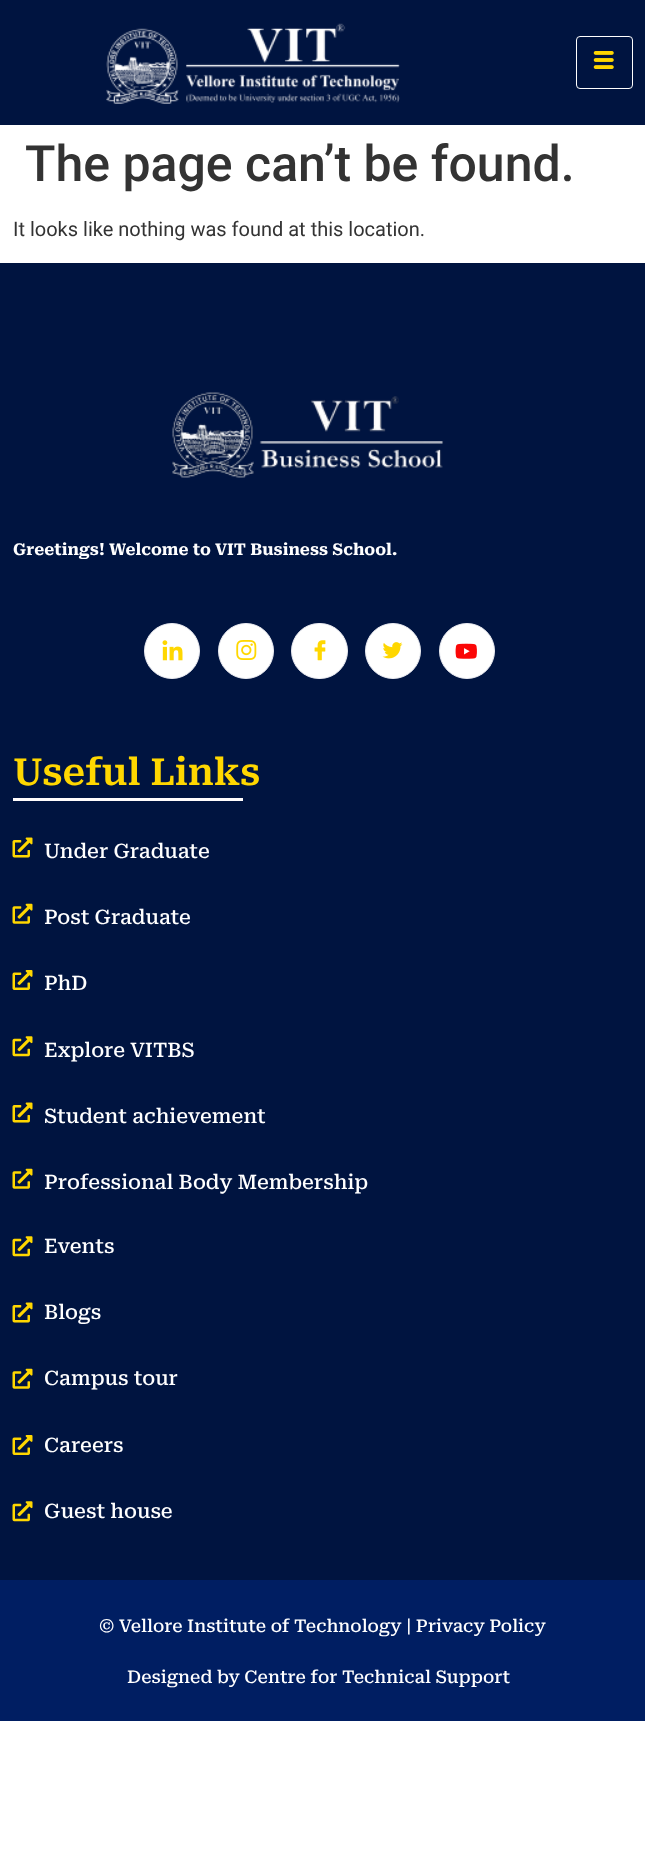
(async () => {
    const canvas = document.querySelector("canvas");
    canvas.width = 645;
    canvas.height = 1870;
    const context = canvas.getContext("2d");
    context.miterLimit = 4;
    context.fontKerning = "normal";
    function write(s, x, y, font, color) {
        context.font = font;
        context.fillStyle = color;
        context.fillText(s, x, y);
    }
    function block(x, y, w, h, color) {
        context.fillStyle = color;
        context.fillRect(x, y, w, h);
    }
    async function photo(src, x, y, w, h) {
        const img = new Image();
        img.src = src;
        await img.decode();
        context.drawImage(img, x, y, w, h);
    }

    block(0, 0, 645, 1870, "rgb(255, 255, 255)");
    block(0, 0, 645, 125, "rgb(0, 20, 64)");
    await photo("media/1.png", 106, 23, 294, 81);
    context.beginPath();
    context.roundRect(576.5, 36.5, 56, 52, 3.5);
    context.strokeStyle = "rgb(255, 255, 255)";
    context.stroke();
    await photo("media/2.png", 593, 51, 21, 18);
    write("The page can’t be found.", 25, 181, "500 50px Roboto", "rgb(51, 51, 51)");
    write("It looks like nothing was found at this location.", 13, 236, "20px Roboto", "rgb(51, 51, 51)");
    block(0, 263, 645, 1317, "rgb(0, 20, 64)");
    await photo("media/3.png", 172, 392, 272, 86);
    write("Greetings! Welcome to VIT Business School.", 13, 555, "bold 16.25px Roboto Serif", "rgb(255, 255, 255)");
    context.beginPath();
    context.arc(172, 651, 27.5, 0, Math.PI * 2);
    context.fill();
    context.strokeStyle = "rgb(234, 235, 241)";
    context.stroke();
    await photo("media/4.png", 162, 640, 21, 21);
    context.beginPath();
    context.arc(246, 651, 27.5, 0, Math.PI * 2);
    context.fill();
    context.stroke();
    await photo("media/5.png", 236, 640, 21, 20);
    context.beginPath();
    context.roundRect(291.5, 623.5, 56, 55, 27.5);
    context.fill();
    context.stroke();
    await photo("media/6.png", 314, 640, 12, 21);
    context.beginPath();
    context.arc(393, 651, 27.5, 0, Math.PI * 2);
    context.fill();
    context.stroke();
    await photo("media/7.png", 382, 642, 21, 17);
    context.beginPath();
    context.arc(467, 651, 27.5, 0, Math.PI * 2);
    context.fill();
    context.stroke();
    await photo("media/8.png", 455, 643, 22, 16);
    write("Useful Links", 13, 785, "600 37.5px Roboto Serif", "rgb(255, 215, 0)");
    block(13, 798, 230, 3, "rgb(255, 252, 252)");
    await photo("media/9.png", 12, 837, 21, 21);
    write("Under Graduate", 44, 858, "500 20px Roboto Serif", "rgb(255, 255, 255)");
    await photo("media/10.png", 12, 903, 21, 21);
    write("Post Graduate", 44, 924, "500 20px Roboto Serif", "rgb(255, 255, 255)");
    await photo("media/11.png", 12, 970, 21, 20);
    write("PhD", 44, 990, "500 20px Roboto Serif", "rgb(255, 255, 255)");
    await photo("media/12.png", 12, 1036, 21, 21);
    write("Explore VITBS", 44, 1057, "500 20px Roboto Serif", "rgb(255, 255, 255)");
    await photo("media/9.png", 12, 1102, 21, 21);
    write("Student achievement", 44, 1123, "500 20px Roboto Serif", "rgb(255, 255, 255)");
    await photo("media/10.png", 12, 1168, 21, 21);
    write("Professional Body Membership", 44, 1189, "500 20px Roboto Serif", "rgb(255, 255, 255)");
    await photo("media/12.png", 12, 1236, 21, 21);
    write("Events", 44, 1253, "500 20px Roboto Serif", "rgb(255, 255, 255)");
    await photo("media/9.png", 12, 1302, 21, 21);
    write("Blogs", 44, 1319, "500 20px Roboto Serif", "rgb(255, 255, 255)");
    await photo("media/10.png", 12, 1368, 21, 21);
    write("Campus tour", 44, 1385, "500 20px Roboto Serif", "rgb(255, 255, 255)");
    await photo("media/11.png", 12, 1435, 21, 20);
    write("Careers", 44, 1452, "500 20px Roboto Serif", "rgb(255, 255, 255)");
    await photo("media/12.png", 12, 1501, 21, 21);
    write("Guest house", 44, 1518, "500 20px Roboto Serif", "rgb(255, 255, 255)");
    block(0, 1580, 645, 141, "rgb(0, 30, 98)");
    write("© Vellore Institute of Technology | Privacy Policy", 99, 1632, "500 17.5px Roboto Serif", "rgb(255, 255, 255)");
    write("Designed by Centre for Technical Support", 127, 1683, "500 17.5px Roboto Serif", "rgb(255, 255, 255)");
})();
